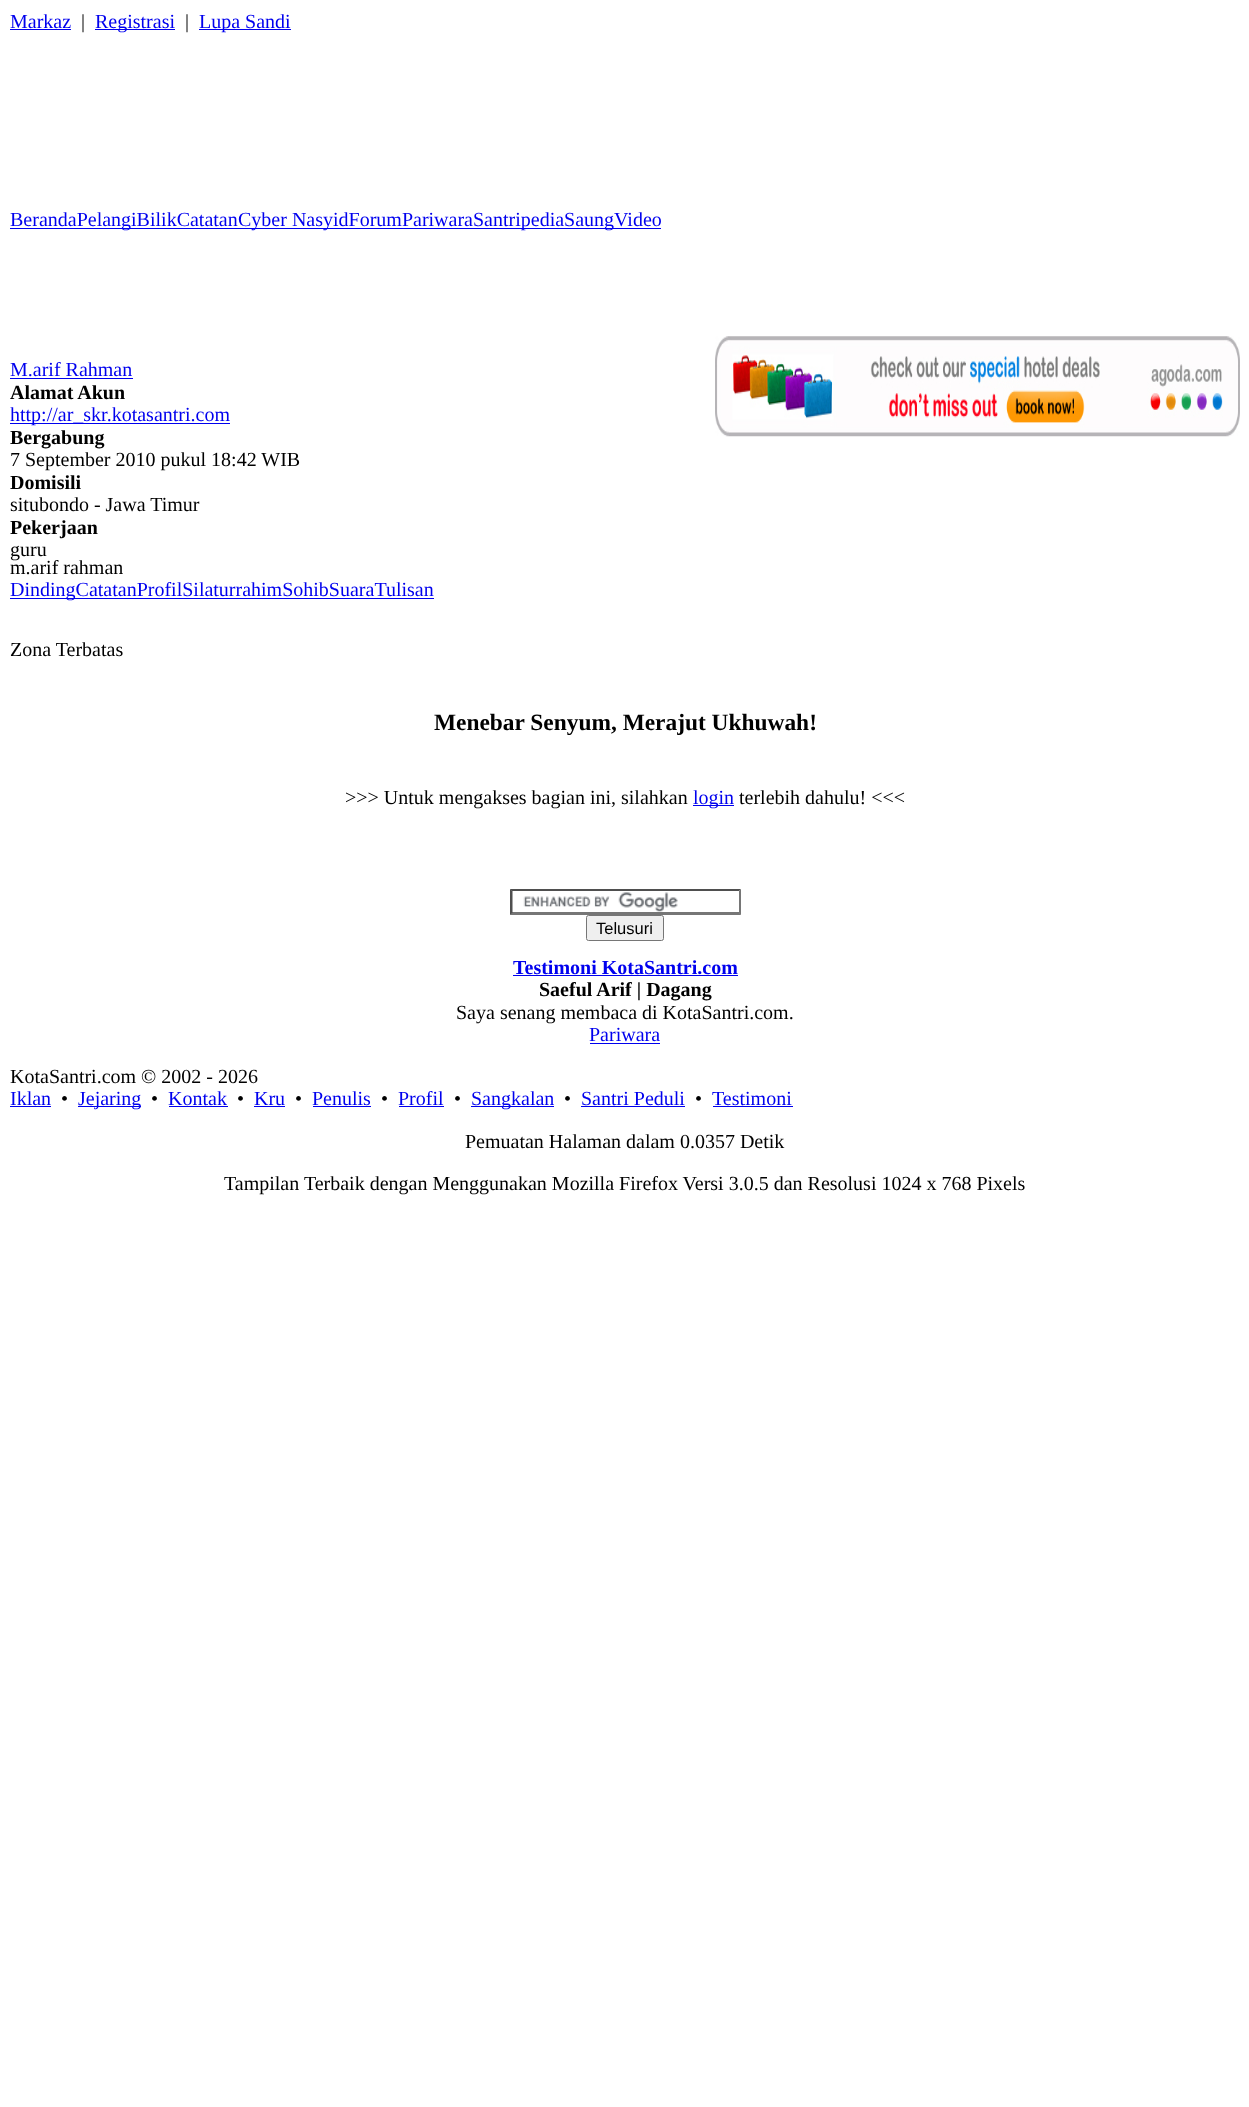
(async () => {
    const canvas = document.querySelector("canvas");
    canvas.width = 1249;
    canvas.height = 2107;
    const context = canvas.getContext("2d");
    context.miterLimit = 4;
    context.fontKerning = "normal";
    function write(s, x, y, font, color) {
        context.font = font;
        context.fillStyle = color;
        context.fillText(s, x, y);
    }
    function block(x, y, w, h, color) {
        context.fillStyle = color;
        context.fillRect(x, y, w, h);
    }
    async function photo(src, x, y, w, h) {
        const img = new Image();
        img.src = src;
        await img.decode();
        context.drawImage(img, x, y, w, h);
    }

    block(0, 0, 1249, 2107, "rgb(255, 255, 255)");
    write("Markaz", 10, 28, "20px Liberation Serif", "rgb(0, 0, 238)");
    block(10, 29, 61, 1, "rgb(0, 0, 238)");
    write("|", 81, 28, "20px Liberation Serif", "rgb(0, 0, 0)");
    block(95, 29, 80, 1, "rgb(0, 0, 238)");
    write("Registrasi", 95, 28, "20px Liberation Serif", "rgb(0, 0, 238)");
    write("|", 185, 28, "20px Liberation Serif", "rgb(0, 0, 0)");
    block(199, 29, 92, 1, "rgb(0, 0, 238)");
    write("Lupa Sandi", 199, 28, "20px Liberation Serif", "rgb(0, 0, 238)");
    block(10, 228, 126, 1, "rgb(0, 0, 238)");
    write("BerandaPelangiBilikCatatan", 10, 226, "20px Liberation Serif", "rgb(0, 0, 238)");
    block(136, 228, 265, 1, "rgb(0, 0, 238)");
    write("Cyber NasyidForumPariwara", 238, 226, "20px Liberation Serif", "rgb(0, 0, 238)");
    block(401, 228, 260, 1, "rgb(0, 0, 238)");
    write("SantripediaSaungVideo", 473, 226, "20px Liberation Serif", "rgb(0, 0, 238)");
    write("M.arif Rahman", 10, 376, "20px Liberation Serif", "rgb(0, 0, 238)");
    block(10, 378, 123, 1, "rgb(0, 0, 238)");
    write("Alamat Akun", 10, 399, "bold 20px Liberation Serif", "rgb(0, 0, 0)");
    block(10, 423, 220, 1, "rgb(0, 0, 238)");
    write("http://ar_skr.kotasantri.com", 10, 421, "20px Liberation Serif", "rgb(0, 0, 238)");
    write("Bergabung", 10, 444, "bold 20px Liberation Serif", "rgb(0, 0, 0)");
    write("7 September 2010 pukul 18:42 WIB", 10, 466, "20px Liberation Serif", "rgb(0, 0, 0)");
    write("Domisili", 10, 489, "bold 20px Liberation Serif", "rgb(0, 0, 0)");
    write("situbondo - Jawa Timur", 10, 511, "20px Liberation Serif", "rgb(0, 0, 0)");
    write("Pekerjaan", 10, 534, "bold 20px Liberation Serif", "rgb(0, 0, 0)");
    write("guru", 10, 556, "20px Liberation Serif", "rgb(0, 0, 0)");
    await photo("media/1.png", 715, 336, 525, 101);
    write("m.arif rahman", 10, 574, "20px Liberation Serif", "rgb(0, 0, 0)");
    block(10, 598, 65, 1, "rgb(0, 0, 238)");
    write("DindingCatatanProfilSilaturrahimSohibSuaraTulisan", 10, 596, "20px Liberation Serif", "rgb(0, 0, 238)");
    block(75, 598, 359, 1, "rgb(0, 0, 238)");
    write("Zona Terbatas", 10, 656, "20px Liberation Serif", "rgb(0, 0, 0)");
    write("Menebar Senyum, Merajut Ukhuwah!", 434, 730, "bold 23.4px Liberation Serif", "rgb(0, 0, 0)");
    write(">>> Untuk mengakses bagian ini, silahkan", 345, 804, "20px Liberation Serif", "rgb(0, 0, 0)");
    block(693, 805, 41, 1, "rgb(0, 0, 238)");
    write("login", 693, 804, "20px Liberation Serif", "rgb(0, 0, 238)");
    write("terlebih dahulu! <<<", 739, 804, "20px Liberation Serif", "rgb(0, 0, 0)");
    await photo("media/2.png", 523, 892, 155, 20);
    context.fillStyle = "rgb(79, 79, 79)";
    context.beginPath();
    context.moveTo(510, 889);
    context.lineTo(741, 889);
    context.lineTo(739, 891);
    context.lineTo(512, 891);
    context.closePath();
    context.fill();
    context.fillStyle = "rgb(118, 118, 118)";
    context.beginPath();
    context.moveTo(741, 889);
    context.lineTo(741, 915);
    context.lineTo(739, 912.5);
    context.lineTo(739, 891);
    context.closePath();
    context.fill();
    context.beginPath();
    context.moveTo(741, 915);
    context.lineTo(510, 915);
    context.lineTo(512, 912);
    context.lineTo(739, 912);
    context.closePath();
    context.fill();
    context.fillStyle = "rgb(79, 79, 79)";
    context.beginPath();
    context.moveTo(510, 915);
    context.lineTo(510, 889);
    context.lineTo(512.5, 891);
    context.lineTo(512.5, 912.5);
    context.closePath();
    context.fill();
    context.fillStyle = "rgb(239, 239, 239)";
    context.beginPath();
    context.roundRect(586.5, 915.5, 77, 25, 2);
    context.fill();
    context.strokeStyle = "rgb(118, 118, 118)";
    context.stroke();
    write("Telusuri", 596, 934, "16.5px Liberation Sans", "rgb(0, 0, 0)");
    write("Testimoni KotaSantri.com", 513, 974, "bold 20px Liberation Serif", "rgb(0, 0, 238)");
    block(513, 975, 225, 1, "rgb(0, 0, 238)");
    write("Saeful Arif | Dagang", 539, 996, "bold 20px Liberation Serif", "rgb(0, 0, 0)");
    write("Saya senang membaca di KotaSantri.com.", 456, 1019, "20px Liberation Serif", "rgb(0, 0, 0)");
    write("Pariwara", 589, 1041, "20px Liberation Serif", "rgb(0, 0, 238)");
    block(590, 1043, 70, 1, "rgb(0, 0, 238)");
    write("KotaSantri.com © 2002 - 2026", 10, 1083, "20px Liberation Serif", "rgb(0, 0, 0)");
    write("Iklan", 10, 1105, "20px Liberation Serif", "rgb(0, 0, 238)");
    block(10, 1106, 41, 1, "rgb(0, 0, 238)");
    write("•", 61, 1105, "20px Liberation Serif", "rgb(0, 0, 0)");
    block(78, 1106, 63, 1, "rgb(0, 0, 238)");
    write("Jejaring", 78, 1105, "20px Liberation Serif", "rgb(0, 0, 238)");
    write("•", 151, 1105, "20px Liberation Serif", "rgb(0, 0, 0)");
    write("Kontak", 168, 1105, "20px Liberation Serif", "rgb(0, 0, 238)");
    block(169, 1106, 59, 1, "rgb(0, 0, 238)");
    write("•", 237, 1105, "20px Liberation Serif", "rgb(0, 0, 0)");
    write("Kru", 254, 1105, "20px Liberation Serif", "rgb(0, 0, 238)");
    block(254, 1106, 31, 1, "rgb(0, 0, 238)");
    write("•", 295, 1105, "20px Liberation Serif", "rgb(0, 0, 0)");
    write("Penulis", 312, 1105, "20px Liberation Serif", "rgb(0, 0, 238)");
    block(313, 1106, 58, 1, "rgb(0, 0, 238)");
    write("•", 381, 1105, "20px Liberation Serif", "rgb(0, 0, 0)");
    write("Profil", 398, 1105, "20px Liberation Serif", "rgb(0, 0, 238)");
    block(399, 1106, 45, 1, "rgb(0, 0, 238)");
    write("•", 454, 1105, "20px Liberation Serif", "rgb(0, 0, 0)");
    block(471, 1106, 83, 1, "rgb(0, 0, 238)");
    write("Sangkalan", 471, 1105, "20px Liberation Serif", "rgb(0, 0, 238)");
    write("•", 564, 1105, "20px Liberation Serif", "rgb(0, 0, 0)");
    write("Santri Peduli", 581, 1105, "20px Liberation Serif", "rgb(0, 0, 238)");
    block(581, 1106, 104, 1, "rgb(0, 0, 238)");
    write("•", 695, 1105, "20px Liberation Serif", "rgb(0, 0, 0)");
    write("Testimoni", 712, 1105, "20px Liberation Serif", "rgb(0, 0, 238)");
    block(713, 1106, 80, 1, "rgb(0, 0, 238)");
    write("Pemuatan Halaman dalam 0.0357 Detik", 465, 1148, "20px Liberation Serif", "rgb(0, 0, 0)");
    write("Tampilan Terbaik dengan Menggunakan Mozilla Firefox Versi 3.0.5 dan Resolusi 1024 x 768 Pixels", 224, 1190, "20px Liberation Serif", "rgb(0, 0, 0)");
})();
